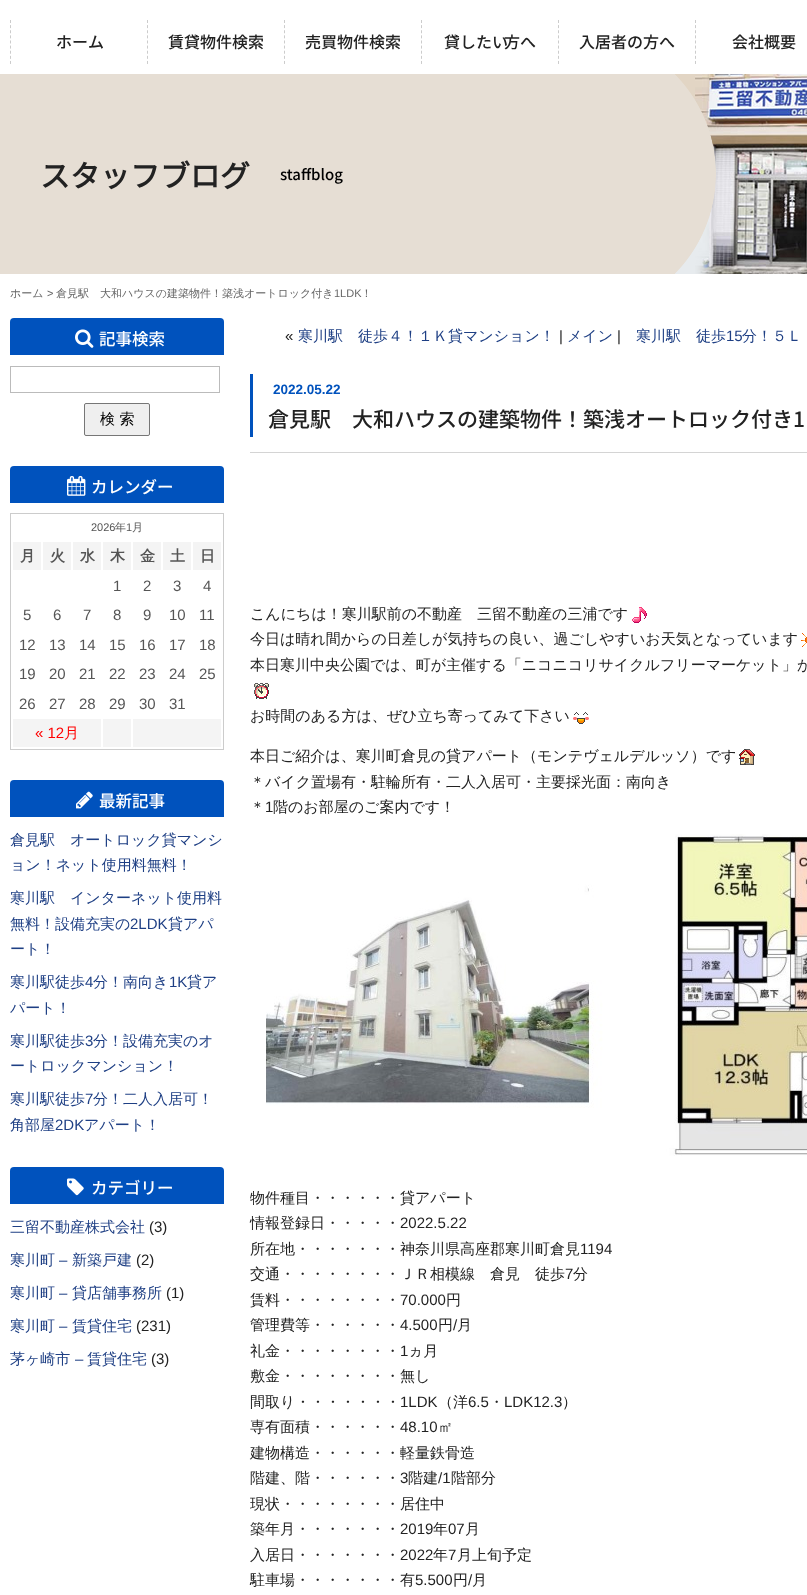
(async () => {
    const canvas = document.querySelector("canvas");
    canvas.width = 807;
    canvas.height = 1595;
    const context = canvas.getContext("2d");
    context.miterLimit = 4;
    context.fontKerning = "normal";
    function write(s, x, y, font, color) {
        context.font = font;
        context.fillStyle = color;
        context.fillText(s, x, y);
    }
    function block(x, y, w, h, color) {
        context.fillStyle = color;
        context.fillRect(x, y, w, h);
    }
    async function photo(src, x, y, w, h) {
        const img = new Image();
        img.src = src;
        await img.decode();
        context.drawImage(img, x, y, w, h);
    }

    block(0, 0, 807, 1595, "rgb(255, 255, 255)");
    context.beginPath();
    context.moveTo(10.5, 20);
    context.lineTo(10.5, 64);
    context.strokeStyle = "rgb(204, 204, 204)";
    context.setLineDash([3, 2.12]);
    context.stroke();
    context.beginPath();
    context.moveTo(147.5, 20);
    context.lineTo(147.5, 64);
    context.stroke();
    write("ホーム", 56, 48, "100 16px Noto Sans JP", "rgb(34, 34, 34)");
    context.beginPath();
    context.moveTo(284.5, 20);
    context.lineTo(284.5, 64);
    context.stroke();
    write("賃貸物件検索", 168, 48, "100 16px Noto Sans JP", "rgb(34, 34, 34)");
    context.beginPath();
    context.moveTo(421.5, 20);
    context.lineTo(421.5, 64);
    context.stroke();
    write("売買物件検索", 305, 48, "100 16px Noto Sans JP", "rgb(34, 34, 34)");
    context.beginPath();
    context.moveTo(558.5, 20);
    context.lineTo(558.5, 64);
    context.stroke();
    write("貸したい", 444, 48, "100 16px Noto Sans JP", "rgb(34, 34, 34)");
    write("方へ", 504, 48, "100 16px Noto Sans JP", "rgb(34, 34, 34)");
    context.beginPath();
    context.moveTo(695.5, 20);
    context.lineTo(695.5, 64);
    context.stroke();
    write("入居者の方へ", 579, 48, "100 16px Noto Sans JP", "rgb(34, 34, 34)");
    write("会社概要", 732, 48, "100 16px Noto Sans JP", "rgb(34, 34, 34)");
    block(0, 74, 675, 200, "rgb(230, 222, 212)");
    await photo("media/1.png", 675, 74, 132, 200);
    write("スタッフブログ", 40, 187, "bold 30px Noto Sans TC", "rgb(34, 34, 34)");
    write("staffblog", 280, 180, "100 15px Noto Sans JP", "rgb(0, 0, 0)");
    write("ホーム", 10, 297, "500 11px WenQuanYi Zen Hei", "rgb(102, 102, 102)");
    write(">", 47, 297, "11px Liberation Sans", "rgb(102, 102, 102)");
    write("倉見駅　大和ハウスの建築物件！築浅オートロック付き", 56, 297, "500 11px WenQuanYi Zen Hei", "rgb(102, 102, 102)");
    write("1LDK", 334, 297, "11px Liberation Sans", "rgb(102, 102, 102)");
    write("！", 361, 297, "500 11px WenQuanYi Zen Hei", "rgb(102, 102, 102)");
    context.fillStyle = "rgb(0, 82, 189)";
    context.beginPath();
    context.roundRect(10, 318, 214, 37, [4, 4, 0, 0]);
    context.fill();
    await photo("media/2.png", 75, 329, 19, 19);
    write("記事検索", 99, 345, "100 16.5px Noto Sans JP", "rgb(255, 255, 255)");
    context.strokeStyle = "rgb(187, 187, 187)";
    context.setLineDash([]);
    context.strokeRect(10.5, 366.5, 209, 26);
    context.fillStyle = "rgb(239, 239, 239)";
    context.beginPath();
    context.roundRect(84.5, 403.5, 65, 32, 1.5);
    context.fill();
    context.strokeStyle = "rgb(118, 118, 118)";
    context.stroke();
    write("検 索", 100, 424, "500 15px WenQuanYi Zen Hei", "rgb(0, 0, 0)");
    context.fillStyle = "rgb(0, 82, 189)";
    context.beginPath();
    context.roundRect(10, 466, 214, 37, [4, 4, 0, 0]);
    context.fill();
    await photo("media/3.png", 67, 476, 19, 20);
    write("カレンダー", 91, 493, "100 16.5px Noto Sans JP", "rgb(255, 255, 255)");
    context.strokeStyle = "rgb(204, 204, 204)";
    context.strokeRect(10.5, 513.5, 213, 236);
    write("2026", 91, 531, "11px Liberation Sans", "rgb(85, 85, 85)");
    write("年", 115, 531, "500 11px WenQuanYi Zen Hei", "rgb(85, 85, 85)");
    write("1", 126, 531, "11px Liberation Sans", "rgb(85, 85, 85)");
    write("月", 132, 531, "500 11px WenQuanYi Zen Hei", "rgb(85, 85, 85)");
    block(13, 542, 28, 28, "rgb(244, 244, 244)");
    write("月", 20, 561, "bold 15px WenQuanYi Zen Hei", "rgb(85, 85, 85)");
    block(43, 542, 28, 28, "rgb(244, 244, 244)");
    write("火", 50, 561, "bold 15px WenQuanYi Zen Hei", "rgb(85, 85, 85)");
    block(73, 542, 28, 28, "rgb(244, 244, 244)");
    write("水", 80, 561, "bold 15px WenQuanYi Zen Hei", "rgb(85, 85, 85)");
    block(103, 542, 28, 28, "rgb(244, 244, 244)");
    write("木", 110, 561, "bold 15px WenQuanYi Zen Hei", "rgb(85, 85, 85)");
    block(133, 542, 28, 28, "rgb(244, 244, 244)");
    write("金", 140, 561, "bold 15px WenQuanYi Zen Hei", "rgb(85, 85, 85)");
    block(163, 542, 28, 28, "rgb(244, 244, 244)");
    write("土", 170, 561, "bold 15px WenQuanYi Zen Hei", "rgb(85, 85, 85)");
    block(193, 542, 28, 28, "rgb(244, 244, 244)");
    write("日", 200, 561, "bold 15px WenQuanYi Zen Hei", "rgb(85, 85, 85)");
    write("1", 113, 591, "15px Liberation Sans", "rgb(85, 85, 85)");
    write("2", 143, 591, "15px Liberation Sans", "rgb(85, 85, 85)");
    write("3", 173, 591, "15px Liberation Sans", "rgb(85, 85, 85)");
    write("4", 203, 591, "15px Liberation Sans", "rgb(85, 85, 85)");
    write("5", 23, 620, "15px Liberation Sans", "rgb(85, 85, 85)");
    write("6", 53, 620, "15px Liberation Sans", "rgb(85, 85, 85)");
    write("7", 83, 620, "15px Liberation Sans", "rgb(85, 85, 85)");
    write("8", 113, 620, "15px Liberation Sans", "rgb(85, 85, 85)");
    write("9", 143, 620, "15px Liberation Sans", "rgb(85, 85, 85)");
    write("10", 169, 620, "15px Liberation Sans", "rgb(85, 85, 85)");
    write("11", 199, 620, "15px Liberation Sans", "rgb(85, 85, 85)");
    write("12", 19, 650, "15px Liberation Sans", "rgb(85, 85, 85)");
    write("13", 49, 650, "15px Liberation Sans", "rgb(85, 85, 85)");
    write("14", 79, 650, "15px Liberation Sans", "rgb(85, 85, 85)");
    write("15", 109, 650, "15px Liberation Sans", "rgb(85, 85, 85)");
    write("16", 139, 650, "15px Liberation Sans", "rgb(85, 85, 85)");
    write("17", 169, 650, "15px Liberation Sans", "rgb(85, 85, 85)");
    write("18", 199, 650, "15px Liberation Sans", "rgb(85, 85, 85)");
    write("19", 19, 679, "15px Liberation Sans", "rgb(85, 85, 85)");
    write("20", 49, 679, "15px Liberation Sans", "rgb(85, 85, 85)");
    write("21", 79, 679, "15px Liberation Sans", "rgb(85, 85, 85)");
    write("22", 109, 679, "15px Liberation Sans", "rgb(85, 85, 85)");
    write("23", 139, 679, "15px Liberation Sans", "rgb(85, 85, 85)");
    write("24", 169, 679, "15px Liberation Sans", "rgb(85, 85, 85)");
    write("25", 199, 679, "15px Liberation Sans", "rgb(85, 85, 85)");
    write("26", 19, 709, "15px Liberation Sans", "rgb(85, 85, 85)");
    write("27", 49, 709, "15px Liberation Sans", "rgb(85, 85, 85)");
    write("28", 79, 709, "15px Liberation Sans", "rgb(85, 85, 85)");
    write("29", 109, 709, "15px Liberation Sans", "rgb(85, 85, 85)");
    write("30", 139, 709, "15px Liberation Sans", "rgb(85, 85, 85)");
    write("31", 169, 709, "15px Liberation Sans", "rgb(85, 85, 85)");
    block(13, 719, 88, 28, "rgb(244, 244, 244)");
    write("« 12", 35, 738, "15px Liberation Sans", "rgb(255, 0, 0)");
    write("月", 64, 738, "500 15px WenQuanYi Zen Hei", "rgb(255, 0, 0)");
    block(103, 719, 28, 28, "rgb(244, 244, 244)");
    block(133, 719, 88, 28, "rgb(244, 244, 244)");
    context.fillStyle = "rgb(0, 82, 189)";
    context.beginPath();
    context.roundRect(10, 780, 214, 37, [4, 4, 0, 0]);
    context.fill();
    await photo("media/4.png", 76, 791, 17, 18);
    write("最新記事", 99, 807, "100 16.5px Noto Sans JP", "rgb(255, 255, 255)");
    write("倉見駅　オートロック貸マンシ", 10, 845, "500 15px WenQuanYi Zen Hei", "rgb(30, 63, 132)");
    write("ョン！ネット使用料無料！", 10, 870, "500 15px WenQuanYi Zen Hei", "rgb(30, 63, 132)");
    write("寒川駅　インターネット使用料", 10, 903, "500 15px WenQuanYi Zen Hei", "rgb(30, 63, 132)");
    write("無料！設備充実の", 10, 929, "500 15px WenQuanYi Zen Hei", "rgb(30, 63, 132)");
    write("2LDK", 130, 929, "15px Liberation Sans", "rgb(30, 63, 132)");
    write("貸アパ", 168, 929, "500 15px WenQuanYi Zen Hei", "rgb(30, 63, 132)");
    write("ート！", 10, 954, "500 15px WenQuanYi Zen Hei", "rgb(30, 63, 132)");
    write("寒川駅徒歩", 10, 987, "500 15px WenQuanYi Zen Hei", "rgb(30, 63, 132)");
    write("4", 85, 987, "15px Liberation Sans", "rgb(30, 63, 132)");
    write("分！南向き", 93, 987, "500 15px WenQuanYi Zen Hei", "rgb(30, 63, 132)");
    write("1K", 169, 987, "15px Liberation Sans", "rgb(30, 63, 132)");
    write("貸ア", 187, 987, "500 15px WenQuanYi Zen Hei", "rgb(30, 63, 132)");
    write("パート！", 10, 1013, "500 15px WenQuanYi Zen Hei", "rgb(30, 63, 132)");
    write("寒川駅徒歩", 10, 1046, "500 15px WenQuanYi Zen Hei", "rgb(30, 63, 132)");
    write("3", 85, 1046, "15px Liberation Sans", "rgb(30, 63, 132)");
    write("分！設備充実のオ", 93, 1046, "500 15px WenQuanYi Zen Hei", "rgb(30, 63, 132)");
    write("ートロックマンション！", 10, 1071, "500 15px WenQuanYi Zen Hei", "rgb(30, 63, 132)");
    write("寒川駅徒歩", 10, 1104, "500 15px WenQuanYi Zen Hei", "rgb(30, 63, 132)");
    write("7", 85, 1104, "15px Liberation Sans", "rgb(30, 63, 132)");
    write("分！二人入居可！", 93, 1104, "500 15px WenQuanYi Zen Hei", "rgb(30, 63, 132)");
    write("角部屋", 10, 1130, "500 15px WenQuanYi Zen Hei", "rgb(30, 63, 132)");
    write("2DK", 55, 1130, "15px Liberation Sans", "rgb(30, 63, 132)");
    write("アパート！", 84, 1130, "500 15px WenQuanYi Zen Hei", "rgb(30, 63, 132)");
    context.fillStyle = "rgb(0, 82, 189)";
    context.beginPath();
    context.roundRect(10, 1167, 214, 37, [4, 4, 0, 0]);
    context.fill();
    await photo("media/5.png", 67, 1178, 17, 18);
    write("カテゴリー", 91, 1194, "100 16.5px Noto Sans JP", "rgb(255, 255, 255)");
    write("三留不動産株式会社", 10, 1232, "500 15px WenQuanYi Zen Hei", "rgb(30, 63, 132)");
    write("(3)", 149, 1232, "15px Liberation Sans", "rgb(34, 34, 34)");
    write("寒川町", 10, 1265, "500 15px WenQuanYi Zen Hei", "rgb(30, 63, 132)");
    write("–", 59, 1265, "15px Liberation Sans", "rgb(30, 63, 132)");
    write("新築戸建", 72, 1265, "500 15px WenQuanYi Zen Hei", "rgb(30, 63, 132)");
    write("(2)", 136, 1265, "15px Liberation Sans", "rgb(34, 34, 34)");
    write("寒川町", 10, 1298, "500 15px WenQuanYi Zen Hei", "rgb(30, 63, 132)");
    write("–", 59, 1298, "15px Liberation Sans", "rgb(30, 63, 132)");
    write("貸店舗事務所", 72, 1298, "500 15px WenQuanYi Zen Hei", "rgb(30, 63, 132)");
    write("(1)", 166, 1298, "15px Liberation Sans", "rgb(34, 34, 34)");
    write("寒川町", 10, 1331, "500 15px WenQuanYi Zen Hei", "rgb(30, 63, 132)");
    write("–", 59, 1331, "15px Liberation Sans", "rgb(30, 63, 132)");
    write("賃貸住宅", 72, 1331, "500 15px WenQuanYi Zen Hei", "rgb(30, 63, 132)");
    write("(231)", 136, 1331, "15px Liberation Sans", "rgb(34, 34, 34)");
    write("茅ヶ崎市", 10, 1364, "500 15px WenQuanYi Zen Hei", "rgb(30, 63, 132)");
    write("–", 75, 1364, "15px Liberation Sans", "rgb(30, 63, 132)");
    write("賃貸住宅", 87, 1364, "500 15px WenQuanYi Zen Hei", "rgb(30, 63, 132)");
    write("(3)", 151, 1364, "15px Liberation Sans", "rgb(34, 34, 34)");
    write("«", 285, 341, "15px Liberation Sans", "rgb(34, 34, 34)");
    write("寒川駅　徒歩４！１Ｋ貸マンション！", 298, 341, "500 15px WenQuanYi Zen Hei", "rgb(30, 63, 132)");
    write("|", 559, 341, "15px Liberation Sans", "rgb(34, 34, 34)");
    write("メイン", 567, 341, "500 15px WenQuanYi Zen Hei", "rgb(30, 63, 132)");
    write("|", 617, 341, "15px Liberation Sans", "rgb(34, 34, 34)");
    write("寒川駅　徒歩", 636, 341, "500 15px WenQuanYi Zen Hei", "rgb(30, 63, 132)");
    write("15", 726, 341, "15px Liberation Sans", "rgb(30, 63, 132)");
    write("分！５Ｌ", 742, 341, "500 15px WenQuanYi Zen Hei", "rgb(30, 63, 132)");
    block(250, 452, 557, 1, "rgb(212, 212, 212)");
    block(250, 374, 3, 63, "rgb(0, 82, 189)");
    write("2022.05.22", 273, 394, "bold 13.5px Liberation Sans", "rgb(0, 82, 189)");
    write("倉見駅　大和ハウスの建築物件！築浅オートロック付き1", 268, 427, "100 21px Noto Sans JP", "rgb(34, 34, 34)");
    write("こんにちは！寒川駅前の不動産　三留不動産の三浦です", 250, 619, "500 15px WenQuanYi Zen Hei", "rgb(34, 34, 34)");
    await photo("media/6.png", 632, 607, 15, 16);
    write("今日は晴れ間からの日差しが気持ちの良い、過ごしやすいお天気となっています", 250, 644, "500 15px WenQuanYi Zen Hei", "rgb(34, 34, 34)");
    await photo("media/7.png", 801, 633, 6, 14);
    write("本日寒川中央公園では、町が主催する「ニコニコリサイクルフリーマーケット」が", 250, 670, "500 15px WenQuanYi Zen Hei", "rgb(34, 34, 34)");
    await photo("media/8.png", 254, 683, 15, 16);
    write("お時間のある方は、ぜひ立ち寄ってみて下さい", 250, 721, "500 15px WenQuanYi Zen Hei", "rgb(34, 34, 34)");
    await photo("media/9.png", 573, 712, 16, 12);
    write("本日ご紹介は、寒川町倉見の貸アパート（モンテヴェルデルッソ）です", 250, 761, "500 15px WenQuanYi Zen Hei", "rgb(34, 34, 34)");
    await photo("media/10.png", 739, 749, 16, 16);
    write("＊バイク置場有・駐輪所有・二人入居可・主要採光面：南向き", 250, 787, "500 15px WenQuanYi Zen Hei", "rgb(34, 34, 34)");
    write("＊", 250, 812, "500 15px WenQuanYi Zen Hei", "rgb(34, 34, 34)");
    write("1", 265, 812, "15px Liberation Sans", "rgb(34, 34, 34)");
    write("階のお部屋のご案内です！", 273, 812, "500 15px WenQuanYi Zen Hei", "rgb(34, 34, 34)");
    await photo("media/11.png", 266, 834, 541, 322);
    write("物件種目・・・・・・貸アパート", 250, 1203, "500 15px WenQuanYi Zen Hei", "rgb(34, 34, 34)");
    write("情報登録日・・・・・", 250, 1228, "500 15px WenQuanYi Zen Hei", "rgb(34, 34, 34)");
    write("2022.5.22", 400, 1228, "15px Liberation Sans", "rgb(34, 34, 34)");
    write("所在地・・・・・・・神奈川県高座郡寒川町倉見", 250, 1254, "500 15px WenQuanYi Zen Hei", "rgb(34, 34, 34)");
    write("1194", 580, 1254, "15px Liberation Sans", "rgb(34, 34, 34)");
    write("交通・・・・・・・・ＪＲ相模線　倉見　徒歩", 250, 1279, "500 15px WenQuanYi Zen Hei", "rgb(34, 34, 34)");
    write("7", 565, 1279, "15px Liberation Sans", "rgb(34, 34, 34)");
    write("分", 573, 1279, "500 15px WenQuanYi Zen Hei", "rgb(34, 34, 34)");
    write("賃料・・・・・・・・", 250, 1305, "500 15px WenQuanYi Zen Hei", "rgb(34, 34, 34)");
    write("70.000", 400, 1305, "15px Liberation Sans", "rgb(34, 34, 34)");
    write("円", 446, 1305, "500 15px WenQuanYi Zen Hei", "rgb(34, 34, 34)");
    write("管理費等・・・・・・", 250, 1330, "500 15px WenQuanYi Zen Hei", "rgb(34, 34, 34)");
    write("4.500", 400, 1330, "15px Liberation Sans", "rgb(34, 34, 34)");
    write("円", 438, 1330, "500 15px WenQuanYi Zen Hei", "rgb(34, 34, 34)");
    write("/", 453, 1330, "15px Liberation Sans", "rgb(34, 34, 34)");
    write("月", 457, 1330, "500 15px WenQuanYi Zen Hei", "rgb(34, 34, 34)");
    write("礼金・・・・・・・・", 250, 1356, "500 15px WenQuanYi Zen Hei", "rgb(34, 34, 34)");
    write("1", 400, 1356, "15px Liberation Sans", "rgb(34, 34, 34)");
    write("ヵ月", 408, 1356, "500 15px WenQuanYi Zen Hei", "rgb(34, 34, 34)");
    write("敷金・・・・・・・・無し", 250, 1381, "500 15px WenQuanYi Zen Hei", "rgb(34, 34, 34)");
    write("間取り・・・・・・・", 250, 1407, "500 15px WenQuanYi Zen Hei", "rgb(34, 34, 34)");
    write("1LDK", 400, 1407, "15px Liberation Sans", "rgb(34, 34, 34)");
    write("（洋", 438, 1407, "500 15px WenQuanYi Zen Hei", "rgb(34, 34, 34)");
    write("6.5", 468, 1407, "15px Liberation Sans", "rgb(34, 34, 34)");
    write("・", 489, 1407, "500 15px WenQuanYi Zen Hei", "rgb(34, 34, 34)");
    write("LDK12.3", 504, 1407, "15px Liberation Sans", "rgb(34, 34, 34)");
    write("）", 562, 1407, "500 15px WenQuanYi Zen Hei", "rgb(34, 34, 34)");
    write("専有面積・・・・・・", 250, 1432, "500 15px WenQuanYi Zen Hei", "rgb(34, 34, 34)");
    write("48.10", 400, 1432, "15px Liberation Sans", "rgb(34, 34, 34)");
    write("㎡", 438, 1432, "500 15px WenQuanYi Zen Hei", "rgb(34, 34, 34)");
    write("建物構造・・・・・・軽量鉄骨造", 250, 1458, "500 15px WenQuanYi Zen Hei", "rgb(34, 34, 34)");
    write("階建、階・・・・・・", 250, 1483, "500 15px WenQuanYi Zen Hei", "rgb(34, 34, 34)");
    write("3", 400, 1483, "15px Liberation Sans", "rgb(34, 34, 34)");
    write("階建", 408, 1483, "500 15px WenQuanYi Zen Hei", "rgb(34, 34, 34)");
    write("/1", 438, 1483, "15px Liberation Sans", "rgb(34, 34, 34)");
    write("階部分", 451, 1483, "500 15px WenQuanYi Zen Hei", "rgb(34, 34, 34)");
    write("現状・・・・・・・・居住中", 250, 1509, "500 15px WenQuanYi Zen Hei", "rgb(34, 34, 34)");
    write("築年月・・・・・・・", 250, 1534, "500 15px WenQuanYi Zen Hei", "rgb(34, 34, 34)");
    write("2019", 400, 1534, "15px Liberation Sans", "rgb(34, 34, 34)");
    write("年", 433, 1534, "500 15px WenQuanYi Zen Hei", "rgb(34, 34, 34)");
    write("07", 448, 1534, "15px Liberation Sans", "rgb(34, 34, 34)");
    write("月", 465, 1534, "500 15px WenQuanYi Zen Hei", "rgb(34, 34, 34)");
    write("入居日・・・・・・・", 250, 1560, "500 15px WenQuanYi Zen Hei", "rgb(34, 34, 34)");
    write("2022", 400, 1560, "15px Liberation Sans", "rgb(34, 34, 34)");
    write("年", 433, 1560, "500 15px WenQuanYi Zen Hei", "rgb(34, 34, 34)");
    write("7", 448, 1560, "15px Liberation Sans", "rgb(34, 34, 34)");
    write("月上旬予定", 457, 1560, "500 15px WenQuanYi Zen Hei", "rgb(34, 34, 34)");
    write("駐車場・・・・・・・有", 250, 1585, "500 15px WenQuanYi Zen Hei", "rgb(34, 34, 34)");
    write("5.500", 415, 1585, "15px Liberation Sans", "rgb(34, 34, 34)");
    write("円", 453, 1585, "500 15px WenQuanYi Zen Hei", "rgb(34, 34, 34)");
    write("/", 468, 1585, "15px Liberation Sans", "rgb(34, 34, 34)");
    write("月", 472, 1585, "500 15px WenQuanYi Zen Hei", "rgb(34, 34, 34)");
})();
